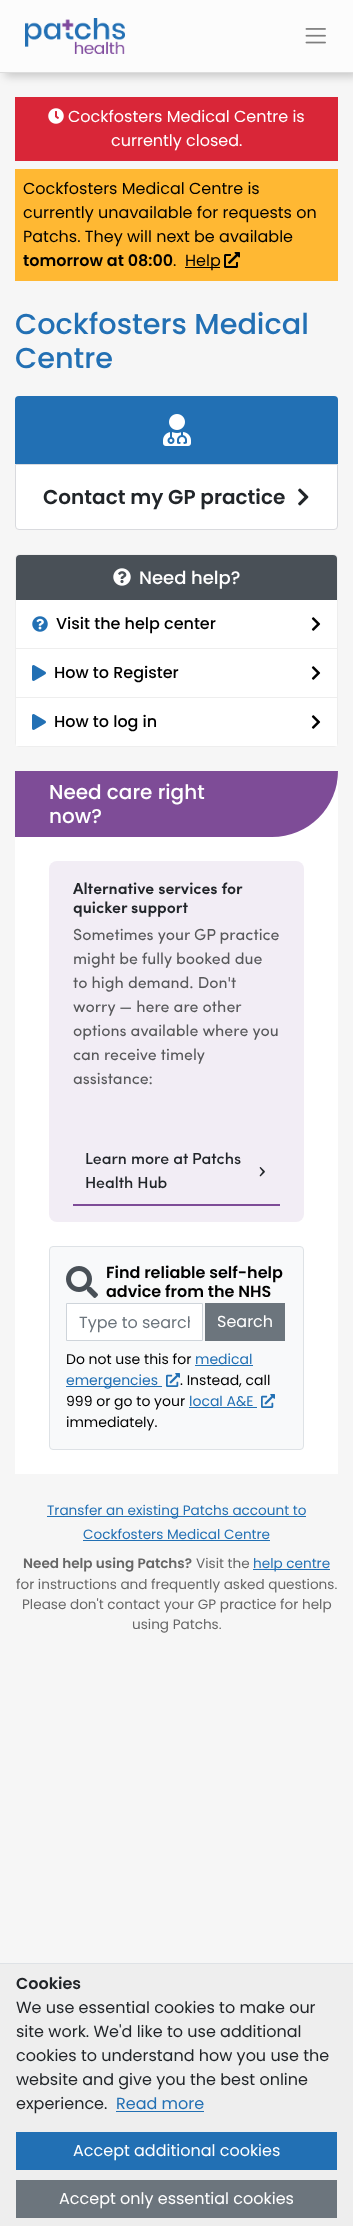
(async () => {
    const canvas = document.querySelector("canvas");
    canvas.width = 353;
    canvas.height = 2226;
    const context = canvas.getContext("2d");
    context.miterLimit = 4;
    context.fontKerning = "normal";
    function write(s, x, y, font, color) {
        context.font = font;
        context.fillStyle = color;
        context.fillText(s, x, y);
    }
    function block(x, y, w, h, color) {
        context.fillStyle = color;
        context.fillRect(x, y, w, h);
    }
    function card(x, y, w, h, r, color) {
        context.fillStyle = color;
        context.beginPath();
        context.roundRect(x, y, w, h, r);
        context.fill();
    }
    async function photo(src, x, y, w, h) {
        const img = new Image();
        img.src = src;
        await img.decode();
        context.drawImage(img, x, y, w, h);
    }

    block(0, 0, 353, 2226, "rgb(246, 246, 246)");
    context.fillStyle = "rgba(0, 0, 0, 0.2)";
    context.filter = "blur(5px)";
    context.beginPath();
    context.rect(5, 3, 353, 73);
    context.fill();
    context.filter = "none";
    block(0, 0, 353, 72, "rgb(252, 252, 252)");
    block(0, 72, 353, 1, "rgb(221, 221, 221)");
    await photo("media/1.png", 25, 18, 100, 36);
    await photo("media/2.png", 305, 28, 21, 16);
    block(15, 97, 323, 64, "rgb(217, 38, 56)");
    await photo("media/3.png", 48, 108, 16, 16);
    write("Cockfosters Medical Centre is", 68, 122, "16px Poppins", "rgb(255, 255, 255)");
    write("currently closed.", 111, 146, "16px Poppins", "rgb(255, 255, 255)");
    block(15, 169, 323, 112, "rgb(255, 184, 51)");
    write("Cockfosters Medical Centre is", 23, 194, "16px Poppins", "rgb(0, 0, 0)");
    write("currently unavailable for requests on", 23, 218, "16px Poppins", "rgb(0, 0, 0)");
    write("Patchs. They will next be available", 23, 242, "16px Poppins", "rgb(0, 0, 0)");
    write("tomorrow at 08:00", 23, 266, "600 16px Poppins", "rgb(0, 0, 0)");
    write(".", 173, 266, "16px Poppins", "rgb(0, 0, 0)");
    block(185, 267, 35, 1, "rgb(0, 0, 0)");
    write("Help", 185, 266, "16px Poppins", "rgb(0, 0, 0)");
    await photo("media/4.png", 224, 252, 16, 16);
    write("Cockfosters Medical", 15, 334, "500 28.75px Poppins", "rgb(34, 112, 180)");
    write("Centre", 15, 368, "500 28.75px Poppins", "rgb(34, 112, 180)");
    context.beginPath();
    context.roundRect(15, 396, 323, 68, [4, 4, 0, 0]);
    context.fill();
    await photo("media/5.png", 163, 414, 28, 32);
    context.fillStyle = "rgb(255, 255, 255)";
    context.beginPath();
    context.roundRect(15.5, 464.5, 322, 65, [0, 0, 3.5, 3.5]);
    context.fill();
    context.strokeStyle = "rgb(217, 218, 222)";
    context.stroke();
    write("Contact my GP practice", 43, 504, "600 20px Poppins", "rgb(33, 37, 41)");
    await photo("media/6.png", 298, 488, 11, 18);
    context.fillStyle = "rgb(248, 249, 250)";
    context.beginPath();
    context.roundRect(15.5, 554.5, 322, 192, 3.5);
    context.fill();
    context.strokeStyle = "rgb(238, 238, 238)";
    context.stroke();
    context.fillStyle = "rgb(73, 80, 87)";
    context.beginPath();
    context.roundRect(16, 555, 321, 45, [4, 4, 0, 0]);
    context.fill();
    await photo("media/7.png", 113, 568, 18, 18);
    write("Need help?", 139, 584, "500 18px Poppins", "rgb(255, 255, 255)");
    block(16, 600, 321, 48, "rgb(255, 255, 255)");
    block(16, 648, 321, 1, "rgb(238, 238, 238)");
    await photo("media/8.png", 32, 616, 16, 16);
    write("Visit the help center", 56, 629, "500 16px Poppins", "rgb(0, 0, 0)");
    await photo("media/9.png", 311, 617, 10, 14);
    block(16, 649, 321, 48, "rgb(255, 255, 255)");
    block(16, 697, 321, 1, "rgb(238, 238, 238)");
    await photo("media/10.png", 32, 665, 14, 16);
    write("How to Register", 54, 678, "500 16px Poppins", "rgb(0, 0, 0)");
    await photo("media/9.png", 311, 666, 10, 14);
    block(16, 698, 321, 48, "rgb(255, 255, 255)");
    await photo("media/10.png", 32, 714, 14, 16);
    write("How to log in", 54, 727, "500 16px Poppins", "rgb(0, 0, 0)");
    await photo("media/9.png", 311, 715, 10, 14);
    block(15, 771, 323, 703, "rgb(255, 255, 255)");
    context.fillStyle = "rgb(126, 76, 151)";
    context.beginPath();
    context.roundRect(15, 771, 323, 66, [0, 0, 66, 0]);
    context.fill();
    write("Need care right", 49, 799, "500 20px Poppins", "rgb(255, 255, 255)");
    write("now?", 49, 823, "500 20px Poppins", "rgb(255, 255, 255)");
    card(49, 861, 255, 361, 8, "rgb(242, 237, 245)");
    write("Alternative services for", 73, 894, "600 16px Sofia", "rgb(33, 37, 41)");
    write("quicker support", 73, 913, "600 16px Sofia", "rgb(33, 37, 41)");
    write("Sometimes your GP practice", 73, 940, "16px Sofia", "rgb(87, 88, 90)");
    write("might be fully booked due", 73, 964, "16px Sofia", "rgb(87, 88, 90)");
    write("to high demand. Don't", 73, 988, "16px Sofia", "rgb(87, 88, 90)");
    write("worry — here are other", 73, 1012, "16px Sofia", "rgb(87, 88, 90)");
    write("options available where you", 73, 1036, "16px Sofia", "rgb(87, 88, 90)");
    write("can receive timely", 73, 1060, "16px Sofia", "rgb(87, 88, 90)");
    write("assistance:", 73, 1084, "16px Sofia", "rgb(87, 88, 90)");
    block(73, 1204, 207, 2, "rgb(126, 76, 151)");
    write("Learn more at Patchs", 85, 1164, "500 16px Sofia", "rgb(33, 37, 41)");
    write("Health Hub", 85, 1188, "500 16px Sofia", "rgb(33, 37, 41)");
    await photo("media/11.png", 259, 1167, 6, 10);
    context.fillStyle = "rgb(248, 249, 250)";
    context.beginPath();
    context.roundRect(49.5, 1246.5, 254, 203, 3.5);
    context.fill();
    context.strokeStyle = "rgb(222, 226, 230)";
    context.stroke();
    await photo("media/12.png", 66, 1266, 32, 32);
    write("Find reliable self-help", 106, 1278, "600 16px Poppins", "rgb(0, 0, 0)");
    write("advice from the NHS", 106, 1297, "600 16px Poppins", "rgb(0, 0, 0)");
    context.fillStyle = "rgb(255, 255, 255)";
    context.beginPath();
    context.rect(66.5, 1303.5, 136, 37);
    context.fill();
    context.strokeStyle = "rgb(206, 212, 218)";
    context.stroke();
    context.save();
    context.beginPath();
    context.rect(79, 1310, 111, 25);
    context.clip();
    write("Type to search", 79, 1328, "16px Poppins", "rgb(108, 117, 125)");
    context.restore();
    block(205, 1303, 80, 38, "rgb(108, 117, 125)");
    write("Search", 217, 1327, "16px Poppins", "rgb(255, 255, 255)");
    write("medical", 195, 1364, "14px Poppins", "rgb(34, 112, 180)");
    block(195, 1365, 58, 1, "rgb(34, 112, 180)");
    block(66, 1386, 96, 1, "rgb(34, 112, 180)");
    write("emergencies", 66, 1385, "14px Poppins", "rgb(34, 112, 180)");
    await photo("media/13.png", 166, 1373, 14, 14);
    write("Do not use this for", 66, 1364, "14px Poppins", "rgb(0, 0, 0)");
    write(". Instead, call", 180, 1385, "14px Poppins", "rgb(0, 0, 0)");
    write("999 or go to your", 66, 1406, "14px Poppins", "rgb(0, 0, 0)");
    write("local A&E", 189, 1406, "14px Poppins", "rgb(34, 112, 180)");
    block(189, 1407, 68, 1, "rgb(34, 112, 180)");
    await photo("media/13.png", 261, 1394, 14, 14);
    write("immediately.", 66, 1427, "14px Poppins", "rgb(0, 0, 0)");
    block(47, 1516, 259, 1, "rgb(34, 112, 180)");
    write("Transfer an existing Patchs account to", 47, 1515, "13.6px Poppins", "rgb(34, 112, 180)");
    write("Cockfosters Medical Centre", 83, 1539, "13.6px Poppins", "rgb(34, 112, 180)");
    block(83, 1540, 187, 1, "rgb(34, 112, 180)");
    write("Need help using Patchs?", 23, 1568, "600 13.6px Poppins", "rgb(102, 102, 102)");
    write("Visit the", 196, 1568, "13.6px Poppins", "rgb(102, 102, 102)");
    block(253, 1569, 77, 1, "rgb(34, 112, 180)");
    write("help centre", 253, 1568, "13.6px Poppins", "rgb(34, 112, 180)");
    write("for instructions and frequently asked questions.", 16, 1589, "13.6px Poppins", "rgb(102, 102, 102)");
    write("Please don't contact your GP practice for help", 22, 1609, "13.6px Poppins", "rgb(102, 102, 102)");
    write("using Patchs.", 132, 1629, "13.6px Poppins", "rgb(102, 102, 102)");
    block(0, 1964, 353, 262, "rgb(238, 238, 238)");
    block(0, 1963, 353, 1, "rgb(222, 226, 230)");
    write("Cookies", 16, 1989, "600 16px Poppins", "rgb(33, 37, 41)");
    write("We use essential cookies to make our", 16, 2013, "16px Poppins", "rgb(33, 37, 41)");
    write("site work. We'd like to use additional", 16, 2037, "16px Poppins", "rgb(33, 37, 41)");
    write("cookies to understand how you use the", 16, 2061, "16px Poppins", "rgb(33, 37, 41)");
    write("website and give you the best online", 16, 2085, "16px Poppins", "rgb(33, 37, 41)");
    write("experience.", 16, 2109, "16px Poppins", "rgb(33, 37, 41)");
    write("Read more", 116, 2109, "16px Poppins", "rgb(34, 112, 180)");
    block(116, 2111, 88, 1, "rgb(34, 112, 180)");
    block(16, 2132, 321, 38, "rgb(34, 112, 180)");
    write("Accept additional cookies", 73, 2156, "16px Poppins", "rgb(255, 255, 255)");
    block(16, 2180, 321, 38, "rgb(108, 117, 125)");
    write("Accept only essential cookies", 59, 2204, "16px Poppins", "rgb(255, 255, 255)");
})();
